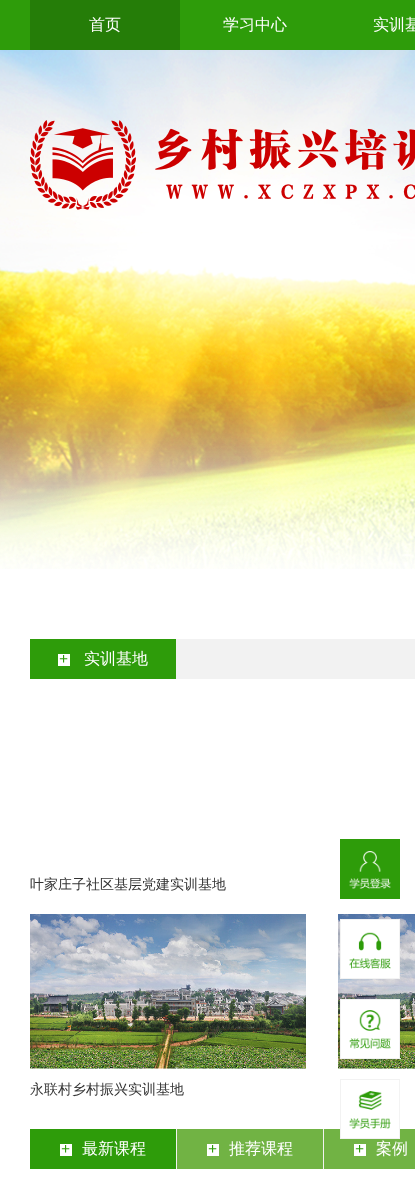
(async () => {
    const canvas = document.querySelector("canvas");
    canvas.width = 415;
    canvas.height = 1179;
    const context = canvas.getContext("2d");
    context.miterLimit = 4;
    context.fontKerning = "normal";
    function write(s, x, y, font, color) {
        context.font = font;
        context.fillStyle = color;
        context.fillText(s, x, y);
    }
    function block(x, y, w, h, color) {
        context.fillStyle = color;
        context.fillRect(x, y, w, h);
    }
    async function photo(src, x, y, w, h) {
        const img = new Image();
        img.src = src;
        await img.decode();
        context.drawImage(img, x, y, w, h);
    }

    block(0, 0, 415, 1179, "rgb(255, 255, 255)");
    await photo("media/1.png", 0, 50, 415, 519);
    block(0, 0, 415, 50, "rgb(46, 156, 10)");
    block(30, 0, 150, 50, "rgb(37, 125, 8)");
    write("首页", 89, 30, "500 16px WenQuanYi Zen Hei", "rgb(255, 255, 255)");
    write("学习中心", 223, 30, "500 16px WenQuanYi Zen Hei", "rgb(255, 255, 255)");
    write("实训基", 373, 30, "500 16px WenQuanYi Zen Hei", "rgb(255, 255, 255)");
    await photo("media/2.png", 30, 120, 385, 90);
    block(176, 639, 239, 40, "rgb(242, 242, 242)");
    block(30, 639, 146, 40, "rgb(46, 156, 10)");
    block(58, 654, 12, 12, "rgb(255, 255, 255)");
    write("+", 59, 664, "bold 16px Liberation Serif", "rgb(46, 156, 10)");
    write("实训基地", 84, 664, "500 16px WenQuanYi Zen Hei", "rgb(255, 255, 255)");
    write("叶家庄子社区基层党建实训基地", 30, 889, "500 14px WenQuanYi Zen Hei", "rgb(51, 51, 51)");
    await photo("media/3.png", 338, 914, 77, 155);
    await photo("media/4.png", 30, 914, 276, 155);
    write("永联村乡村振兴实训基地", 30, 1094, "500 14px WenQuanYi Zen Hei", "rgb(51, 51, 51)");
    block(176, 1129, 148, 40, "rgb(242, 242, 242)");
    block(30, 1129, 146, 40, "rgb(46, 156, 10)");
    block(60, 1144, 12, 12, "rgb(255, 255, 255)");
    write("+", 61, 1154, "bold 16px Liberation Serif", "rgb(46, 156, 10)");
    write("最新课程", 82, 1154, "500 16px WenQuanYi Zen Hei", "rgb(255, 255, 255)");
    block(177, 1129, 146, 40, "rgb(113, 179, 68)");
    block(207, 1144, 12, 12, "rgb(255, 255, 255)");
    write("+", 208, 1154, "bold 16px Liberation Serif", "rgb(46, 156, 10)");
    write("推荐课程", 229, 1154, "500 16px WenQuanYi Zen Hei", "rgb(255, 255, 255)");
    block(324, 1129, 91, 40, "rgb(113, 179, 68)");
    block(354, 1144, 12, 12, "rgb(255, 255, 255)");
    write("+", 355, 1154, "bold 16px Liberation Serif", "rgb(46, 156, 10)");
    write("案例", 376, 1154, "500 16px WenQuanYi Zen Hei", "rgb(255, 255, 255)");
    await photo("media/5.png", 340, 839, 60, 60);
    await photo("media/6.png", 340, 919, 60, 60);
    await photo("media/7.png", 340, 999, 60, 60);
    await photo("media/8.png", 340, 1079, 60, 60);
})();
